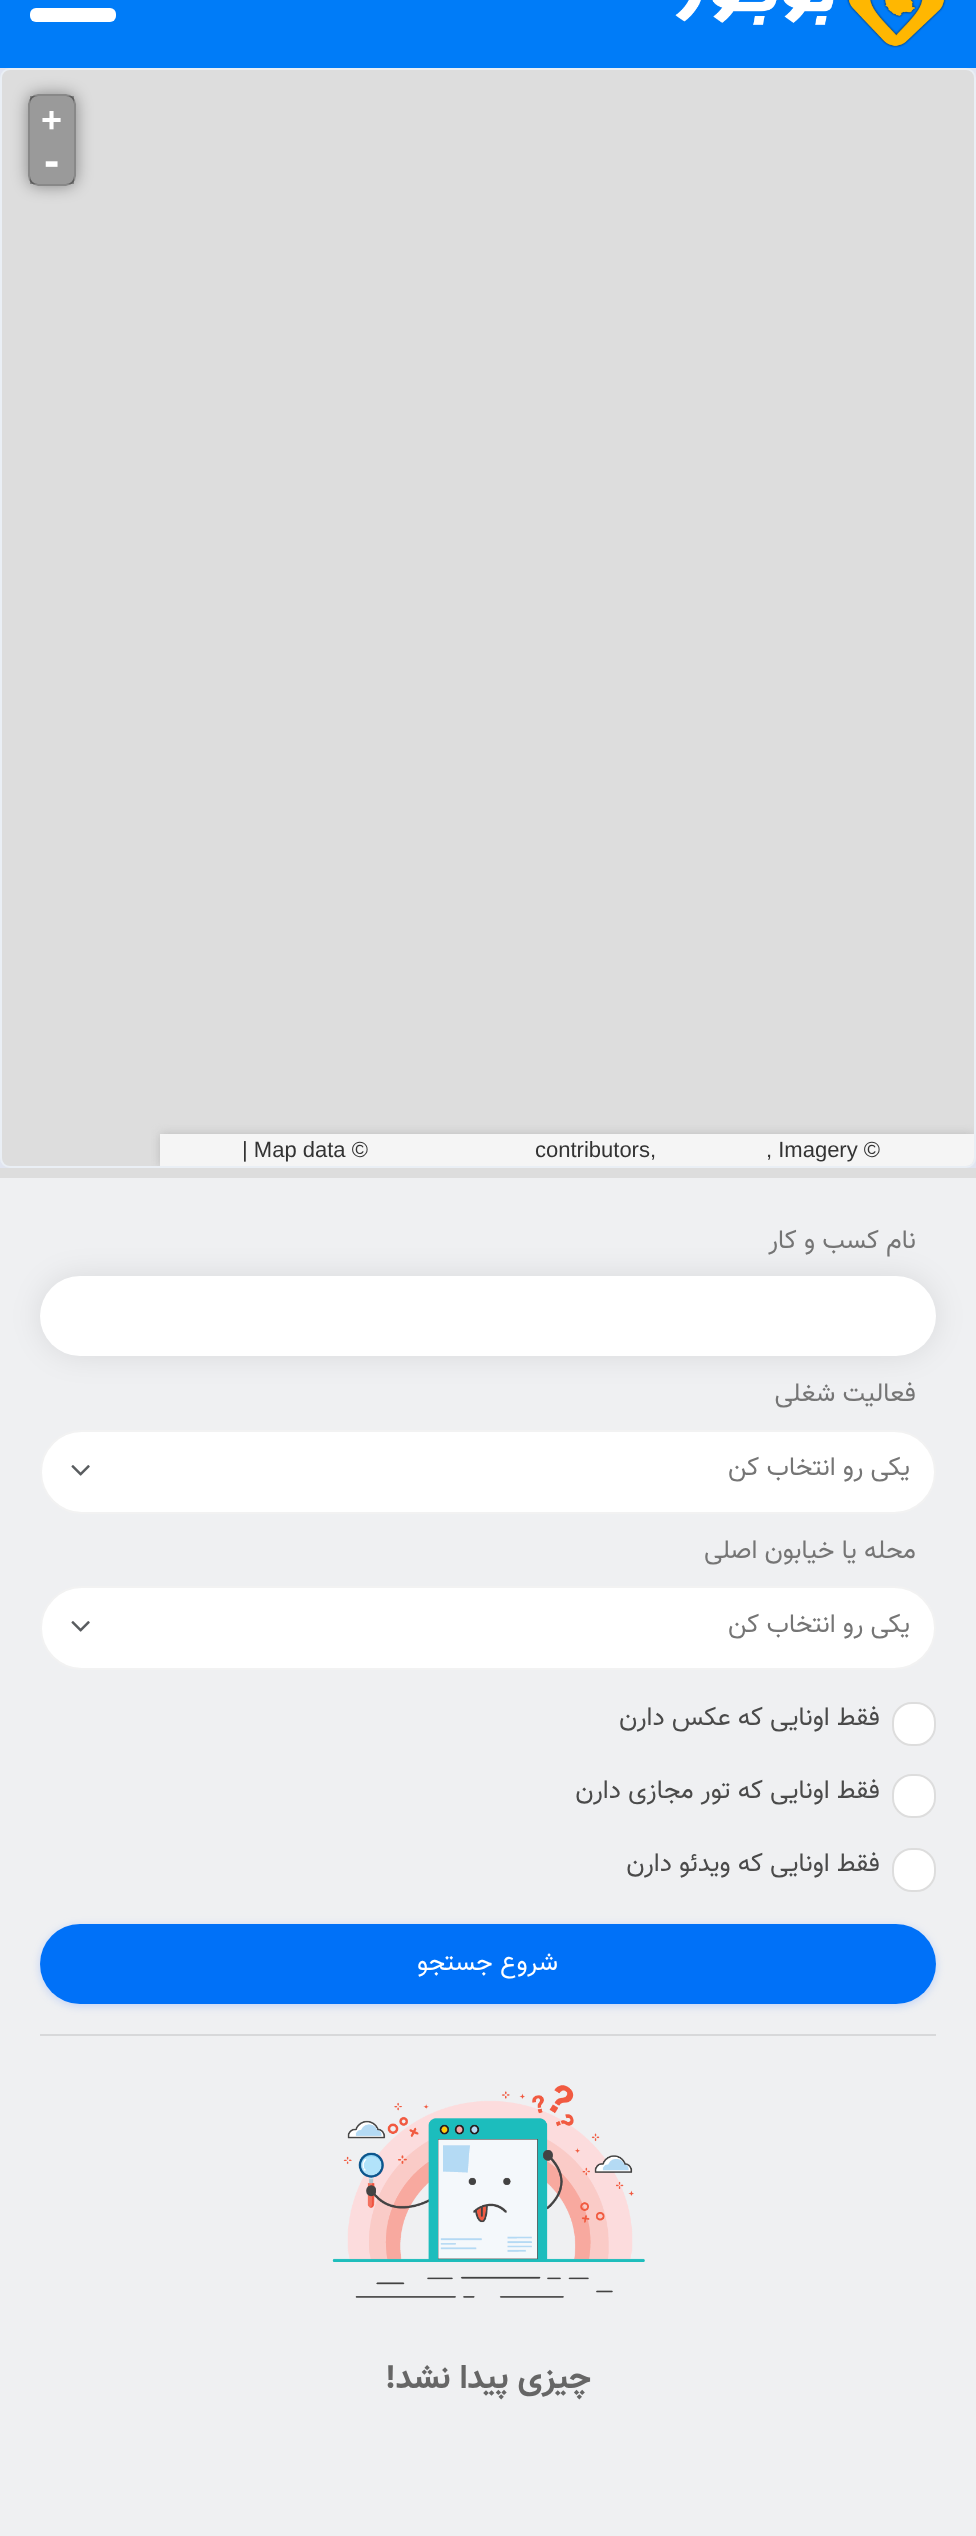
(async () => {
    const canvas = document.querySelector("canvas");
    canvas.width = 976;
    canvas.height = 2536;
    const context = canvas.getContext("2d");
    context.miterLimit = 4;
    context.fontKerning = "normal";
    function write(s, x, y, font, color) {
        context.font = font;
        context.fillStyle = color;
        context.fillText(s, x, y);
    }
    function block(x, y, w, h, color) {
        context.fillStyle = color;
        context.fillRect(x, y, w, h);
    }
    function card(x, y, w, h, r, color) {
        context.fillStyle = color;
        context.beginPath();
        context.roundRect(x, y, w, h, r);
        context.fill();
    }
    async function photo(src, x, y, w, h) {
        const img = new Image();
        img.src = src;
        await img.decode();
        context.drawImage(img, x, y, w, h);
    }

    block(0, 0, 976, 2536, "rgb(225, 229, 241)");
    block(0, 0, 976, 68, "rgb(0, 124, 248)");
    await photo("media/1.png", 675, 0, 271, 48);
    card(30, 8, 86, 14, 6, "rgb(255, 255, 255)");
    context.fillStyle = "rgb(221, 221, 221)";
    context.beginPath();
    context.roundRect(1, 69, 974, 1098, 9);
    context.fill();
    context.strokeStyle = "rgb(234, 239, 245)";
    context.lineWidth = 2;
    context.stroke();
    context.save();
    context.beginPath();
    context.moveTo(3, 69);
    context.lineTo(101, 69);
    context.lineTo(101, 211);
    context.lineTo(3, 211);
    context.closePath();
    context.moveTo(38, 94);
    context.lineTo(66, 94);
    context.bezierCurveTo(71.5, 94, 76, 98.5, 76, 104);
    context.lineTo(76, 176);
    context.bezierCurveTo(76, 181.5, 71.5, 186, 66, 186);
    context.lineTo(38, 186);
    context.bezierCurveTo(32.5, 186, 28, 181.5, 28, 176);
    context.lineTo(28, 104);
    context.bezierCurveTo(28, 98.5, 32.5, 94, 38, 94);
    context.closePath();
    context.clip("evenodd");
    context.fillStyle = "rgba(0, 0, 0, 0.4)";
    context.filter = "blur(8px)";
    context.beginPath();
    context.roundRect(28, 94, 48, 92, 10);
    context.fill();
    context.filter = "none";
    context.restore();
    context.beginPath();
    context.roundRect(29, 95, 46, 90, 9);
    context.strokeStyle = "rgb(136, 136, 136)";
    context.stroke();
    block(30, 96, 44, 44, "rgba(0, 0, 0, 0.3)");
    write("+", 41, 132, "bold 36px Liberation Sans", "rgb(255, 255, 255)");
    block(30, 140, 44, 44, "rgba(0, 0, 0, 0.3)");
    write("-", 44, 176, "bold 46px Liberation Sans", "rgb(255, 255, 255)");
    context.save();
    context.beginPath();
    context.roundRect(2, 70, 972, 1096, 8);
    context.clip();
    context.beginPath();
    context.moveTo(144, 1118);
    context.lineTo(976, 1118);
    context.lineTo(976, 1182);
    context.lineTo(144, 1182);
    context.closePath();
    context.moveTo(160, 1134);
    context.lineTo(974, 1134);
    context.lineTo(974, 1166);
    context.lineTo(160, 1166);
    context.closePath();
    context.clip("evenodd");
    context.fillStyle = "rgb(187, 187, 187)";
    context.filter = "blur(5px)";
    context.beginPath();
    context.rect(160, 1134, 814, 32);
    context.fill();
    context.filter = "none";
    context.restore();
    context.fillStyle = "rgba(255, 255, 255, 0.7)";
    context.beginPath();
    context.roundRect(160, 1134, 814, 32, [0, 0, 8, 0]);
    context.fill();
    write(", Imagery ©", 766, 1157, "22px Liberation Sans", "rgb(51, 51, 51)");
    write("contributors,", 535, 1157, "22px Liberation Sans", "rgb(51, 51, 51)");
    write("| Map data ©", 242, 1157, "22px Liberation Sans", "rgb(51, 51, 51)");
    block(0, 1178, 976, 1358, "rgb(239, 240, 242)");
    block(0, 1168, 976, 10, "rgb(221, 221, 221)");
    context.fillStyle = "rgba(0, 0, 0, 0.09)";
    context.filter = "blur(15px)";
    context.beginPath();
    context.roundRect(40, 1276, 896, 80, 40);
    context.fill();
    context.filter = "none";
    context.direction = "rtl";
    write("نام کسب و کار", 916, 1248, "26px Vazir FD", "rgb(117, 117, 117)");
    card(40, 1276, 896, 80, 40, "rgb(255, 255, 255)");
    write("فعالیت شغلی", 916, 1401, "26px Vazir FD", "rgb(117, 117, 117)");
    context.fillStyle = "rgb(255, 255, 255)";
    context.beginPath();
    context.roundRect(41, 1431, 894, 82, 41);
    context.fill();
    context.strokeStyle = "rgb(242, 242, 242)";
    context.stroke();
    write("یکی رو انتخاب کن", 910, 1475, "26px Vazir FD", "rgb(117, 117, 117)");
    await photo("media/2.png", 71, 1465, 19, 11);
    write("محله یا خیابون اصلی", 916, 1558, "26px Vazir FD", "rgb(117, 117, 117)");
    context.fillStyle = "rgb(255, 255, 255)";
    context.beginPath();
    context.roundRect(41, 1587, 894, 82, 41);
    context.fill();
    context.stroke();
    write("یکی رو انتخاب کن", 910, 1632, "26px Vazir FD", "rgb(117, 117, 117)");
    await photo("media/2.png", 71, 1621, 19, 11);
    context.fillStyle = "rgb(255, 255, 255)";
    context.beginPath();
    context.roundRect(893, 1703, 42, 42, 19);
    context.fill();
    context.strokeStyle = "rgb(221, 221, 221)";
    context.stroke();
    write("فقط اونایی که عکس دارن", 880, 1725, "26px Vazir FD", "rgb(74, 74, 74)");
    context.fillStyle = "rgb(255, 255, 255)";
    context.beginPath();
    context.roundRect(893, 1775, 42, 42, 19);
    context.fill();
    context.stroke();
    write("فقط اونایی که تور مجازی دارن", 880, 1798, "26px Vazir FD", "rgb(74, 74, 74)");
    context.fillStyle = "rgb(255, 255, 255)";
    context.beginPath();
    context.roundRect(893, 1849, 42, 42, 19);
    context.fill();
    context.stroke();
    write("فقط اونایی که ویدئو دارن", 880, 1871, "26px Vazir FD", "rgb(74, 74, 74)");
    context.fillStyle = "rgba(90, 141, 255, 0.3)";
    context.filter = "blur(4px)";
    context.beginPath();
    context.roundRect(40, 1926, 896, 80, 40);
    context.fill();
    context.filter = "none";
    card(40, 1924, 896, 80, 40, "rgb(0, 113, 248)");
    write("شروع جستجو", 558, 1970, "26px Vazir FD", "rgb(255, 255, 255)");
    block(40, 2034, 896, 2, "rgb(215, 216, 218)");
    await photo("media/3.png", 332, 2085, 313, 213);
    write("چیزی پیدا نشد!", 591, 2388, "bold 34px Vazir FD", "rgb(102, 102, 102)");
})();
